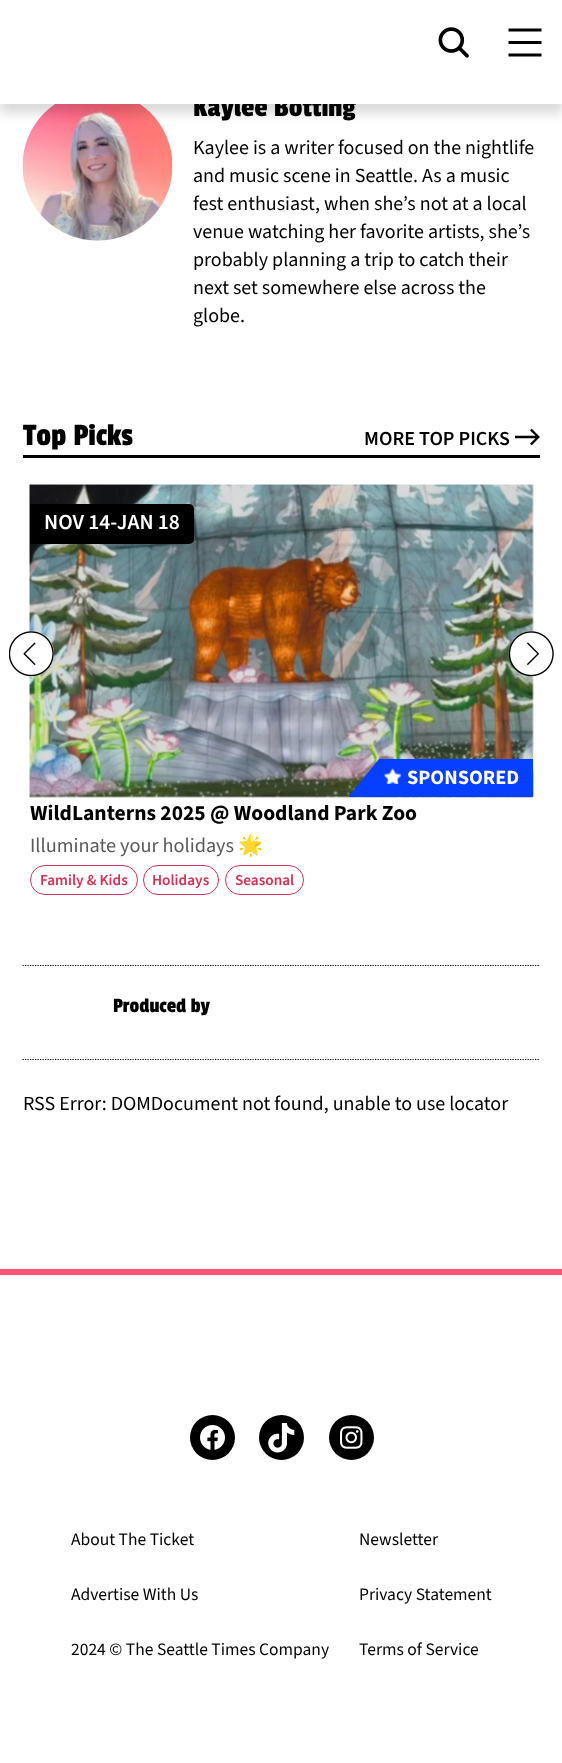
(async () => {
    const canvas = document.querySelector("canvas");
    canvas.width = 562;
    canvas.height = 1763;
    const context = canvas.getContext("2d");
    context.miterLimit = 4;
    context.fontKerning = "normal";
    function write(s, x, y, font, color) {
        context.font = font;
        context.fillStyle = color;
        context.fillText(s, x, y);
    }
    function block(x, y, w, h, color) {
        context.fillStyle = color;
        context.fillRect(x, y, w, h);
    }
    async function photo(src, x, y, w, h) {
        const img = new Image();
        img.src = src;
        await img.decode();
        context.drawImage(img, x, y, w, h);
    }

    block(0, 0, 562, 1763, "rgb(255, 255, 255)");
    await photo("media/2.png", 22, 104, 151, 137);
    context.fillStyle = "rgba(0, 0, 0, 0.1)";
    context.filter = "blur(6px)";
    context.beginPath();
    context.rect(0, 9, 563, 104);
    context.fill();
    context.filter = "none";
    context.fillStyle = "rgba(0, 0, 0, 0.05)";
    context.filter = "blur(6px)";
    context.beginPath();
    context.rect(0, 9, 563, 104);
    context.fill();
    context.filter = "none";
    write("Kaylee Botting", 193, 116, "30px Passion One", "rgb(0, 0, 0)");
    block(0, 0, 562, 104, "rgb(255, 255, 255)");
    await photo("media/1.png", 438, 27, 31, 31);
    context.fillStyle = "rgb(0, 0, 0)";
    context.beginPath();
    context.moveTo(508.5, 28.5);
    context.lineTo(508.5, 31.5);
    context.lineTo(541.5, 31.5);
    context.lineTo(541.5, 28.5);
    context.closePath();
    context.moveTo(508.5, 44);
    context.lineTo(541.5, 44);
    context.lineTo(541.5, 41);
    context.lineTo(508.5, 41);
    context.closePath();
    context.moveTo(508.5, 56.5);
    context.lineTo(541.5, 56.5);
    context.lineTo(541.5, 53.5);
    context.lineTo(508.5, 53.5);
    context.closePath();
    context.fill();
    write("Kaylee is a writer focused on the nightlife", 193, 154, "italic 20px 'Source Sans 3'", "rgb(0, 0, 0)");
    write("and music scene in Seattle. As a music", 193, 182, "italic 20px 'Source Sans 3'", "rgb(0, 0, 0)");
    write("fest enthusiast, when she’s not at a local", 193, 210, "italic 20px 'Source Sans 3'", "rgb(0, 0, 0)");
    write("venue watching her favorite artists, she’s", 193, 238, "italic 20px 'Source Sans 3'", "rgb(0, 0, 0)");
    write("probably planning a trip to catch their", 193, 266, "italic 20px 'Source Sans 3'", "rgb(0, 0, 0)");
    write("next set somewhere else across the", 193, 294, "italic 20px 'Source Sans 3'", "rgb(0, 0, 0)");
    write("globe.", 193, 322, "italic 20px 'Source Sans 3'", "rgb(0, 0, 0)");
    block(23, 455, 517, 3, "rgb(0, 0, 0)");
    write("Top Picks", 23, 445, "32.5px Passion One", "rgb(0, 0, 0)");
    write("MORE TOP PICKS", 364, 445, "italic 600 20px 'Source Sans 3'", "rgb(0, 0, 0)");
    await photo("media/3.png", 515, 428, 25, 18);
    await photo("media/4.png", 29, 484, 505, 314);
    context.beginPath();
    context.roundRect(30, 504, 164, 40, [0, 5, 5, 0]);
    context.fill();
    write("NOV 14-JAN 18", 44, 529, "italic 600 21.5px 'Source Sans 3'", "rgb(255, 255, 255)");
    context.fillStyle = "rgb(6, 63, 255)";
    context.beginPath();
    context.moveTo(379, 759);
    context.lineTo(533, 759);
    context.lineTo(533, 797);
    context.lineTo(349, 797);
    context.lineTo(349, 796);
    context.closePath();
    context.fill();
    await photo("media/5.png", 383, 768, 19, 16);
    write("SPONSORED", 407, 784, "italic bold 20.25px 'Source Sans 3'", "rgb(255, 255, 255)");
    write("WildLanterns 2025 @ Woodland Park Zoo", 30, 820, "italic bold 21.5px 'Source Sans 3'", "rgb(0, 0, 0)");
    write("Illuminate your holidays", 30, 852, "italic 20.25px 'Source Sans 3'", "rgb(89, 89, 89)");
    write("🌟", 238, 852, "20.25px Noto Color Emoji", "rgb(89, 89, 89)");
    context.beginPath();
    context.roundRect(30.5, 865.5, 107, 29, 14.5);
    context.strokeStyle = "rgb(207, 50, 85)";
    context.stroke();
    write("Family & Kids", 40, 885, "italic 600 15.25px 'Source Sans 3'", "rgb(207, 50, 85)");
    context.beginPath();
    context.roundRect(143.5, 865.5, 75, 29, 14.5);
    context.stroke();
    write("Holidays", 152, 885, "italic 600 15.25px 'Source Sans 3'", "rgb(207, 50, 85)");
    context.beginPath();
    context.roundRect(225.5, 865.5, 78, 29, 14.5);
    context.stroke();
    write("Seasonal", 235, 885, "italic 600 15.25px 'Source Sans 3'", "rgb(207, 50, 85)");
    context.fillStyle = "rgb(255, 255, 255)";
    context.beginPath();
    context.arc(31.5, 653.5, 22.5, 0, Math.PI * 2);
    context.fill();
    await photo("media/6.png", 9, 631, 45, 45);
    context.beginPath();
    context.arc(531.5, 653.5, 22.5, 0, Math.PI * 2);
    context.fill();
    await photo("media/7.png", 509, 631, 45, 45);
    context.beginPath();
    context.moveTo(22.5, 965.5);
    context.lineTo(540, 965.5);
    context.strokeStyle = "rgb(0, 0, 0)";
    context.lineWidth = 1.2;
    context.setLineDash([1.25, 1.25]);
    context.stroke();
    context.beginPath();
    context.moveTo(22.5, 1059.5);
    context.lineTo(540, 1059.5);
    context.stroke();
    write("Produced by", 113, 1012, "21.25px Passion One", "rgb(0, 0, 0)");
    write("RSS Error: DOMDocument not found, unable to use locator", 23, 1110, "italic 20px 'Source Sans 3'", "rgb(0, 0, 0)");
    block(0, 1269, 562, 6, "rgb(255, 85, 116)");
    context.fillStyle = "rgb(0, 0, 0)";
    context.beginPath();
    context.arc(212.5, 1437.5, 22.5, 0, Math.PI * 2);
    context.fill();
    await photo("media/8.png", 200, 1425, 25, 25);
    context.beginPath();
    context.arc(281.5, 1437.5, 22.5, 0, Math.PI * 2);
    context.fill();
    await photo("media/9.png", 268, 1423, 27, 30);
    context.beginPath();
    context.arc(351.5, 1437.5, 22.5, 0, Math.PI * 2);
    context.fill();
    await photo("media/10.png", 340, 1426, 23, 23);
    write("About The Ticket", 71, 1545, "italic 17.5px 'Source Sans 3'", "rgb(0, 0, 0)");
    write("Newsletter", 359, 1545, "italic 17.5px 'Source Sans 3'", "rgb(0, 0, 0)");
    write("Advertise With Us", 71, 1600, "italic 17.5px 'Source Sans 3'", "rgb(0, 0, 0)");
    write("Privacy Statement", 359, 1600, "italic 17.5px 'Source Sans 3'", "rgb(0, 0, 0)");
    write("2024 © The Seattle Times Company", 71, 1655, "italic 17.5px 'Source Sans 3'", "rgb(0, 0, 0)");
    write("Terms of Service", 359, 1655, "italic 17.5px 'Source Sans 3'", "rgb(0, 0, 0)");
})();
